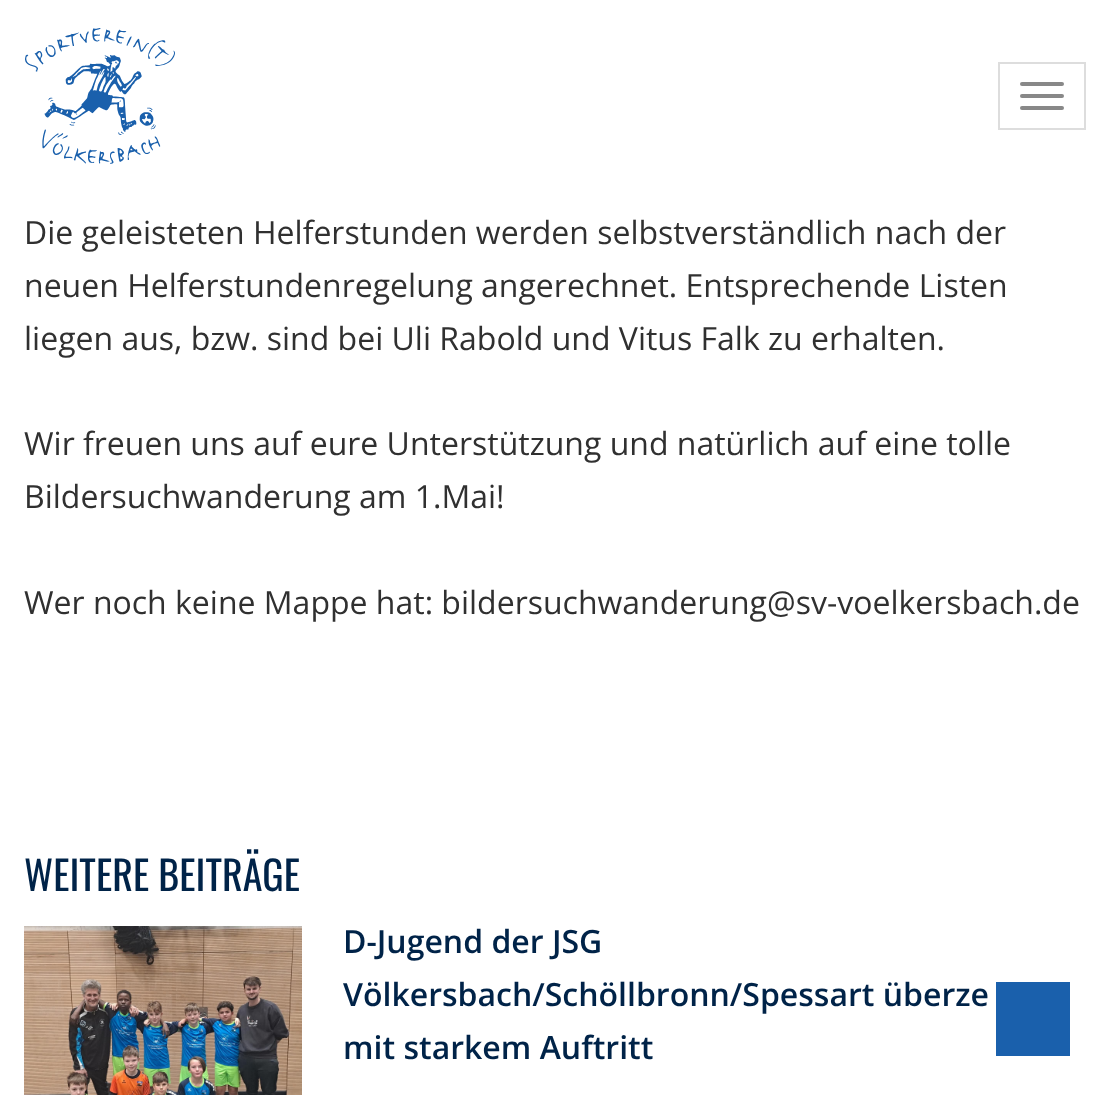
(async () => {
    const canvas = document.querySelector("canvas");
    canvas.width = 1110;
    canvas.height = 1095;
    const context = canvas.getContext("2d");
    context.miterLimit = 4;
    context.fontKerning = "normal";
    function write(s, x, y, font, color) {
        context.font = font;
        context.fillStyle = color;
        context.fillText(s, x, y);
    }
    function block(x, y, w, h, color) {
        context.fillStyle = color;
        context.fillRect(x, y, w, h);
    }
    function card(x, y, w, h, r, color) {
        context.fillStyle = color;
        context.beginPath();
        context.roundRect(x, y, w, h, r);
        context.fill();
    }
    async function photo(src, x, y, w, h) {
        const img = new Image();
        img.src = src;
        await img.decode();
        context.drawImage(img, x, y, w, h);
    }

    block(0, 0, 1110, 1095, "rgb(255, 255, 255)");
    await photo("media/1.png", 25, 28, 150, 136);
    context.strokeStyle = "rgb(221, 221, 221)";
    context.lineWidth = 2;
    context.strokeRect(999, 63, 86, 66);
    card(1020, 82, 44, 4, 2, "rgb(136, 136, 136)");
    card(1020, 94, 44, 4, 2, "rgb(136, 136, 136)");
    card(1020, 106, 44, 4, 2, "rgb(136, 136, 136)");
    write("Die geleisteten Helferstunden werden selbstverständlich nach der", 24, 244, "32px Open Sans", "rgb(48, 48, 48)");
    write("neuen Helferstundenregelung angerechnet. Entsprechende Listen", 24, 297, "32px Open Sans", "rgb(48, 48, 48)");
    write("liegen aus, bzw. sind bei Uli Rabold und Vitus Falk zu erhalten.", 24, 350, "32px Open Sans", "rgb(48, 48, 48)");
    write("Wir freuen uns auf eure Unterstützung und natürlich auf eine tolle", 24, 455, "32px Open Sans", "rgb(48, 48, 48)");
    write("Bildersuchwanderung am 1.Mai!", 24, 508, "32px Open Sans", "rgb(48, 48, 48)");
    write("Wer noch keine Mappe hat: bildersuchwanderung@sv-voelkersbach.de", 24, 614, "32px Open Sans", "rgb(48, 48, 48)");
    write("WEITERE BEITRÄGE", 24, 891, "40px Oswald", "rgb(0, 35, 72)");
    await photo("media/2.png", 24, 926, 278, 169);
    write("D-Jugend der JSG", 343, 953, "600 32px Open Sans", "rgb(0, 35, 72)");
    write("Völkersbach/Schöllbronn/Spessart überze", 343, 1006, "600 32px Open Sans", "rgb(0, 35, 72)");
    write("mit starkem Auftritt", 343, 1059, "600 32px Open Sans", "rgb(0, 35, 72)");
    block(996, 982, 74, 74, "rgb(26, 96, 172)");
})();
